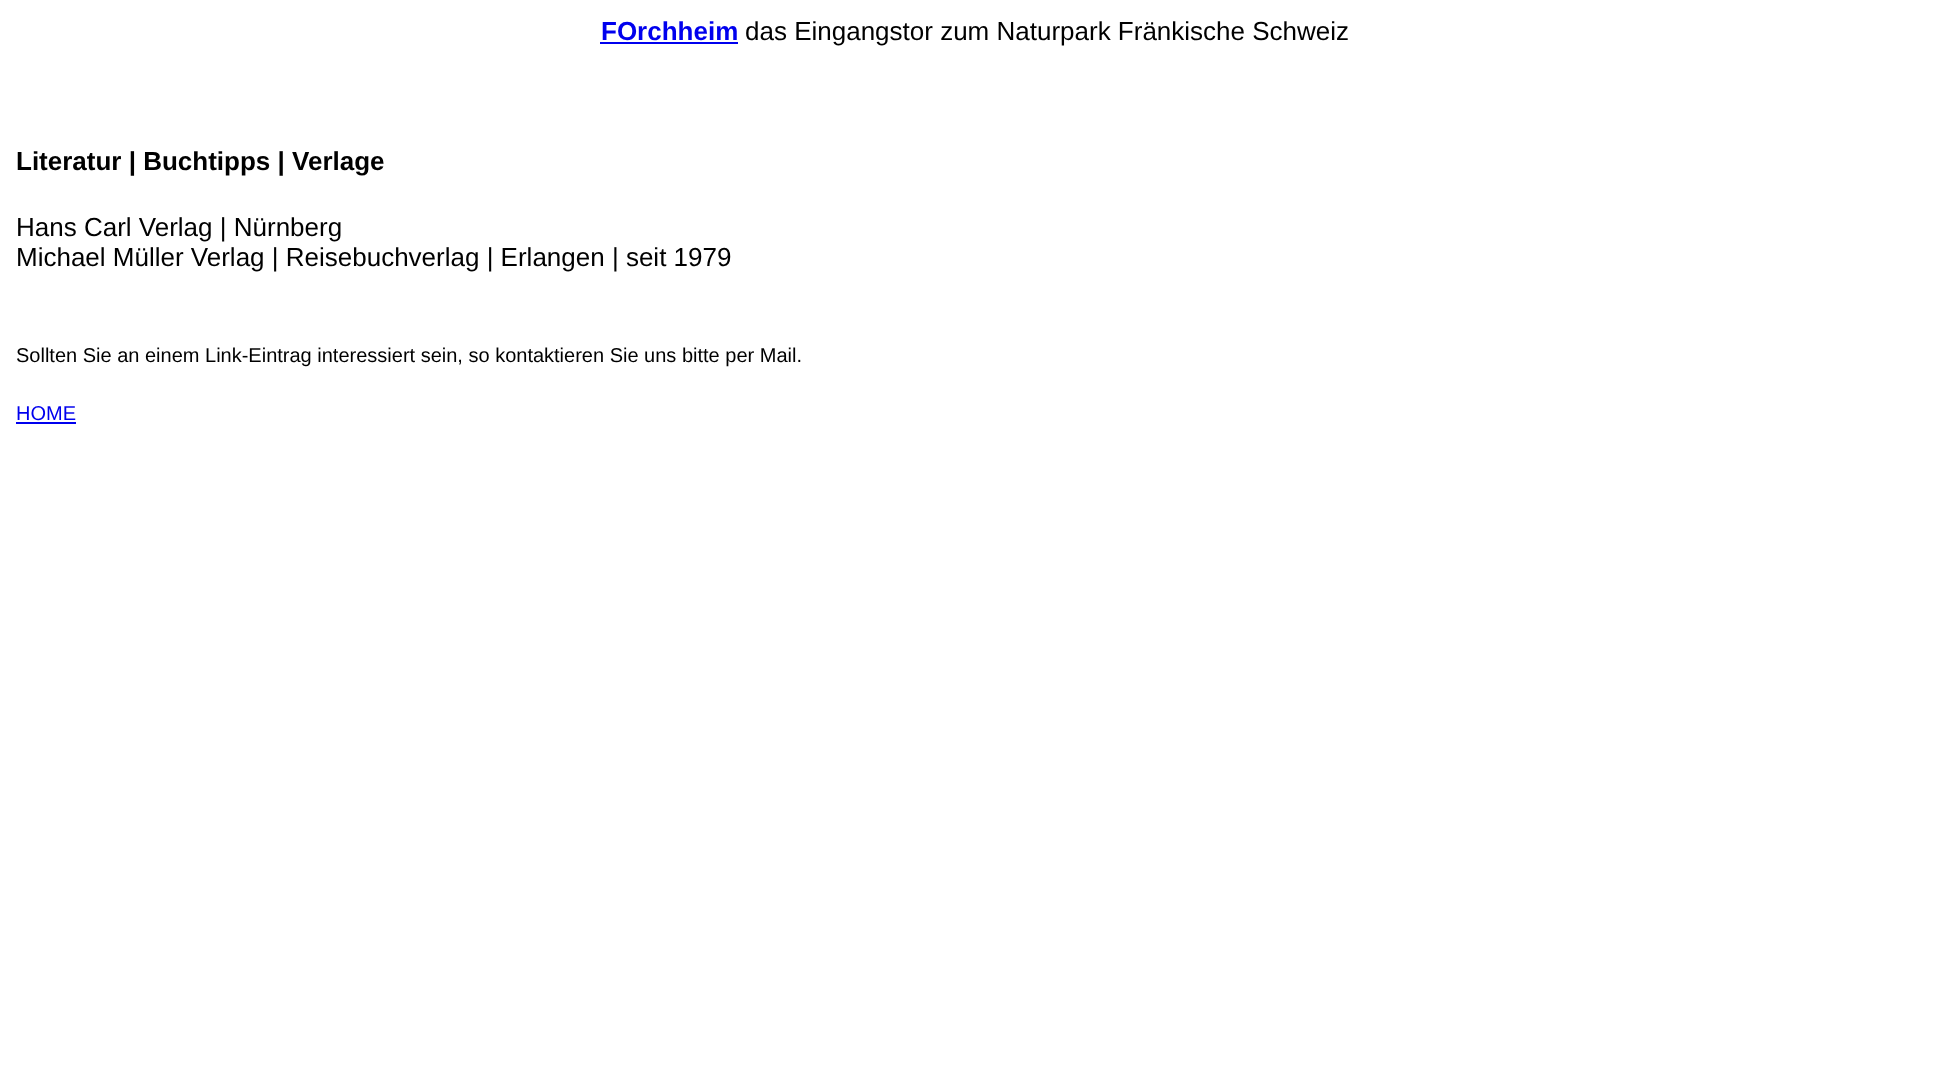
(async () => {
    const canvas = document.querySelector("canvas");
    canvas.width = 1949;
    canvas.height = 1081;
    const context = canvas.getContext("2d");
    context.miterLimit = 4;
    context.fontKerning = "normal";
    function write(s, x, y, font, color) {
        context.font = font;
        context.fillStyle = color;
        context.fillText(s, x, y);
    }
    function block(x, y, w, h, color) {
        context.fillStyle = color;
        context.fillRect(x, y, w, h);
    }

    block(0, 0, 1949, 1081, "rgb(255, 255, 255)");
    write("FOrchheim", 601, 40, "bold 26px Liberation Sans", "rgb(0, 0, 238)");
    block(600, 42, 138, 2, "rgb(0, 0, 238)");
    write("das Eingangstor zum Naturpark Fränkische Schweiz", 745, 40, "26px Liberation Sans", "rgb(0, 0, 0)");
    write("Literatur | Buchtipps | Verlage", 16, 170, "bold 26px Liberation Sans", "rgb(0, 0, 0)");
    write("Hans Carl Verlag | Nürnberg", 16, 236, "26px Liberation Sans", "rgb(0, 0, 0)");
    write("Michael Müller Verlag | Reisebuchverlag | Erlangen | seit 1979", 16, 266, "26px Liberation Sans", "rgb(0, 0, 0)");
    write("Sollten Sie an einem Link-Eintrag interessiert sein, so kontaktieren Sie uns bitte per Mail.", 16, 362, "20px Liberation Sans", "rgb(0, 0, 0)");
    write("HOME", 16, 420, "20px Liberation Sans", "rgb(0, 0, 238)");
    block(16, 422, 60, 2, "rgb(0, 0, 238)");
})();
